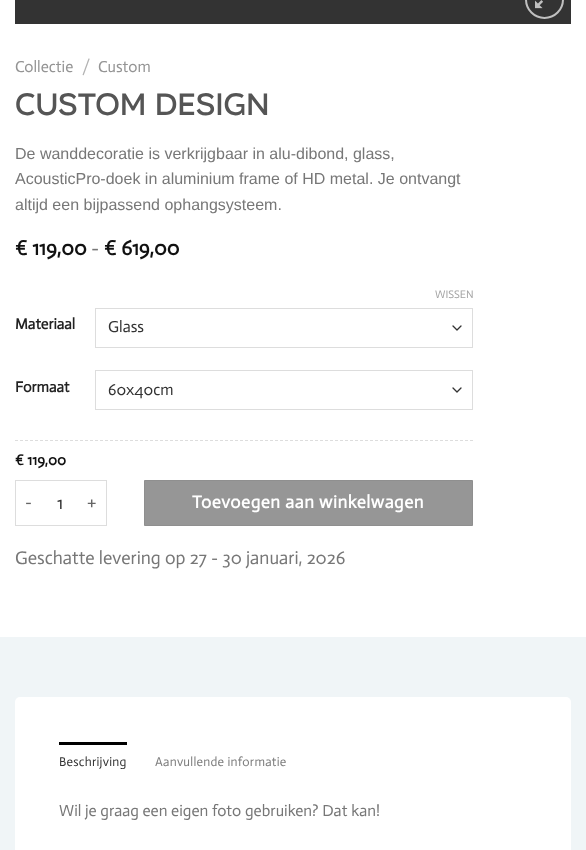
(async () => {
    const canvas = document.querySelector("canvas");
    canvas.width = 586;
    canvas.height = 850;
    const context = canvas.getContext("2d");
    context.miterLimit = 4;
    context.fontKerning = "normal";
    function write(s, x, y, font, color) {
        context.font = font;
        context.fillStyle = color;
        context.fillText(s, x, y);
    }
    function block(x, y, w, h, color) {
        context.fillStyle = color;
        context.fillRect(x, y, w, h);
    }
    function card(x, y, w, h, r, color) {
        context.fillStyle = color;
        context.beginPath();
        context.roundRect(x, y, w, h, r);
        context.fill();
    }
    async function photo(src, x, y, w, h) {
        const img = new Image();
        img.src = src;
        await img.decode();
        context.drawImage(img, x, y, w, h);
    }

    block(0, 0, 586, 850, "rgb(255, 255, 255)");
    block(15, 0, 556, 24, "rgb(51, 51, 51)");
    context.beginPath();
    context.arc(544.5, -0.5, 18.5, 0, Math.PI * 2);
    context.strokeStyle = "rgb(192, 192, 192)";
    context.lineWidth = 2;
    context.stroke();
    await photo("media/1.png", 535, 0, 8, 9);
    write("Collectie", 15, 72, "16px Actor", "rgb(148, 148, 148)");
    write("/", 82, 72, "16px Actor", "rgb(178, 178, 178)");
    write("Custom", 98, 72, "16px Actor", "rgb(148, 148, 148)");
    write("Custom Design", 15, 115, "31.25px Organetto", "rgb(85, 85, 85)");
    write("De wanddecoratie is verkrijgbaar in alu-dibond, glass,", 15, 159, "16px Liberation Sans", "rgb(119, 119, 119)");
    write("AcousticPro-doek in aluminium frame of HD metal. Je ontvangt", 15, 184, "16px Liberation Sans", "rgb(119, 119, 119)");
    write("altijd een bijpassend ophangsysteem.", 15, 210, "16px Liberation Sans", "rgb(119, 119, 119)");
    write("€ 119,00", 15, 255, "bold 21px Actor", "rgb(17, 17, 17)");
    write("-", 91, 255, "21px Actor", "rgb(119, 119, 119)");
    write("€ 619,00", 104, 255, "bold 21px Actor", "rgb(17, 17, 17)");
    write("Formaat", 15, 392, "bold 15px Actor", "rgb(34, 34, 34)");
    write("WISSEN", 435, 298, "11px Actor", "rgb(163, 163, 163)");
    context.beginPath();
    context.moveTo(453, 388);
    context.lineTo(457, 392);
    context.lineTo(461, 388);
    context.strokeStyle = "rgb(51, 51, 51)";
    context.lineWidth = 1.3;
    context.lineCap = "round";
    context.lineJoin = "round";
    context.stroke();
    context.strokeStyle = "rgb(221, 221, 221)";
    context.lineWidth = 1;
    context.lineJoin = "miter";
    context.strokeRect(95.5, 370.5, 377, 39);
    write("60x40cm", 108, 395, "16px Actor", "rgb(51, 51, 51)");
    write("Materiaal", 15, 329, "bold 15px Actor", "rgb(34, 34, 34)");
    context.beginPath();
    context.moveTo(453, 326);
    context.lineTo(457, 330);
    context.lineTo(461, 326);
    context.strokeStyle = "rgb(51, 51, 51)";
    context.lineWidth = 1.3;
    context.lineJoin = "round";
    context.stroke();
    context.strokeStyle = "rgb(221, 221, 221)";
    context.lineWidth = 1;
    context.lineJoin = "miter";
    context.strokeRect(95.5, 308.5, 377, 39);
    write("Glass", 108, 332, "16px Actor", "rgb(51, 51, 51)");
    context.beginPath();
    context.moveTo(15, 440.5);
    context.lineTo(473, 440.5);
    context.lineCap = "butt";
    context.setLineDash([3, 2]);
    context.stroke();
    write("€ 119,00", 15, 465, "bold 15px Actor", "rgb(17, 17, 17)");
    block(15, 480, 92, 1, "rgb(221, 221, 221)");
    block(15, 525, 63, 1, "rgb(221, 221, 221)");
    block(15, 480, 1, 46, "rgb(221, 221, 221)");
    context.letterSpacing = "0.55px";
    write("-", 25, 508, "17.8px Actor", "rgb(102, 102, 102)");
    context.letterSpacing = "0px";
    write("1", 57, 509, "18.4px Actor", "rgb(51, 51, 51)");
    block(106, 480, 1, 46, "rgb(221, 221, 221)");
    block(78, 525, 29, 1, "rgb(221, 221, 221)");
    context.letterSpacing = "0.55px";
    write("+", 87, 508, "17.8px Actor", "rgb(102, 102, 102)");
    context.fillStyle = "rgb(150, 150, 150)";
    context.beginPath();
    context.rect(144.5, 480.5, 328, 45);
    context.fill();
    context.strokeStyle = "rgb(143, 143, 143)";
    context.setLineDash([]);
    context.stroke();
    write("Toevoegen aan winkelwagen", 192, 508, "bold 17.8px Actor", "rgb(255, 255, 255)");
    context.letterSpacing = "0px";
    write("Geschatte levering op 27 - 30 januari, 2026", 15, 564, "18.4px Actor", "rgb(119, 119, 119)");
    block(0, 637, 586, 213, "rgb(240, 245, 247)");
    card(15, 697, 556, 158, 5, "rgb(255, 255, 255)");
    block(59, 742, 68, 3, "rgb(0, 0, 0)");
    context.letterSpacing = "0.25px";
    write("Beschrijving", 59, 766, "12.75px Actor", "rgb(51, 51, 51)");
    write("Aanvullende informatie", 155, 766, "12.75px Actor", "rgb(125, 125, 125)");
    context.letterSpacing = "0px";
    write("Wil je graag een eigen foto gebruiken? Dat kan!", 59, 816, "16px Actor", "rgb(119, 119, 119)");
})();
